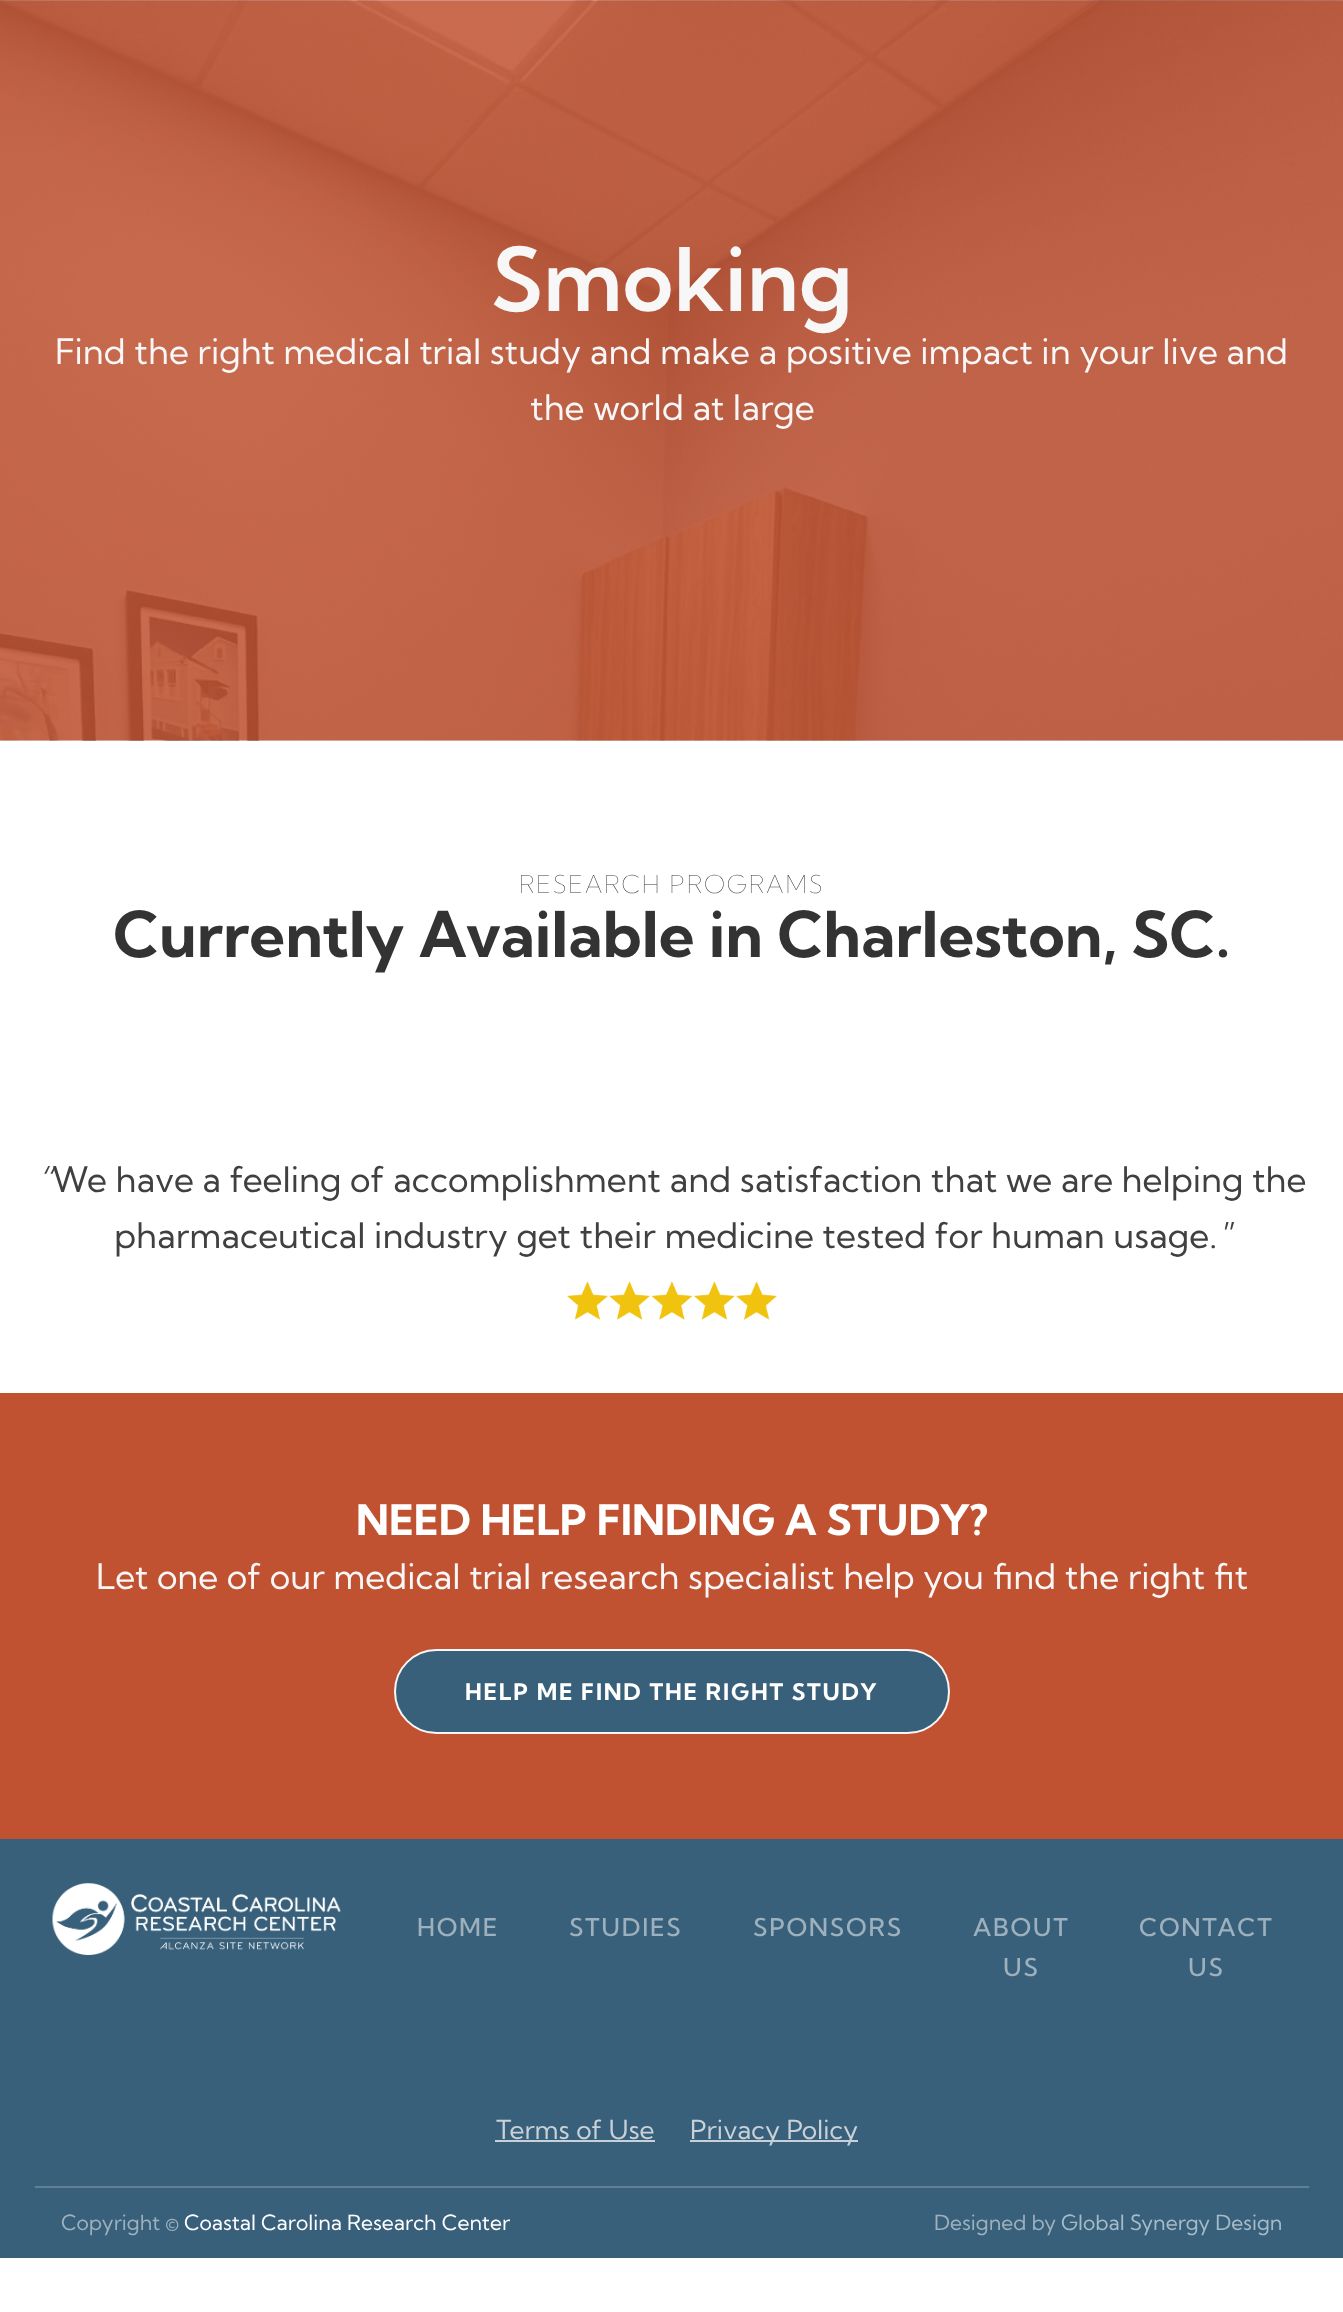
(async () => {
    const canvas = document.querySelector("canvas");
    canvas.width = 1343;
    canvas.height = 2312;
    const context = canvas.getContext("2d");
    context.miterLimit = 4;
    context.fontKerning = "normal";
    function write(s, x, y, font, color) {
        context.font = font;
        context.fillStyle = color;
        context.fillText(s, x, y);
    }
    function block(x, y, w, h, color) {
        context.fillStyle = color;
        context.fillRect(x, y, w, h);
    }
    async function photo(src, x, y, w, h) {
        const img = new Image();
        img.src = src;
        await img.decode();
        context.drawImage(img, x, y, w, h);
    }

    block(0, 0, 1343, 2312, "rgb(255, 255, 255)");
    await photo("media/1.png", 0, 0, 1343, 741);
    write("Smoking", 491, 311, "600 87.5px Kumbh Sans", "rgb(247, 247, 247)");
    write("Find the right medical trial study and make a positive impact in your live and", 55, 364, "35px Kumbh Sans", "rgb(247, 247, 247)");
    write("the world at large", 530, 420, "35px Kumbh Sans", "rgb(247, 247, 247)");
    context.letterSpacing = "1.75px";
    write("RESEARCH PROGRAMS", 519, 893, "100 24.5px Kumbh Sans", "rgb(58, 52, 50)");
    context.letterSpacing = "0px";
    write("Currently Available in Charleston, SC.", 113, 957, "bold 63px Kumbh Sans", "rgb(51, 51, 51)");
    write("“", 37, 1192, "italic 35px Kumbh Sans", "rgb(64, 64, 64)");
    write("We have a feeling of accomplishment and satisfaction that we are helping the", 52, 1192, "35px Kumbh Sans", "rgb(64, 64, 64)");
    write("pharmaceutical industry get their medicine tested for human usage.", 114, 1248, "35px Kumbh Sans", "rgb(64, 64, 64)");
    write("\"", 1217, 1248, "italic 35px Kumbh Sans", "rgb(64, 64, 64)");
    await photo("media/2.png", 567, 1281, 210, 39);
    block(0, 1393, 1343, 446, "rgb(192, 81, 49)");
    write("NEED HELP FINDING A STUDY?", 356, 1535, "bold 42px Kumbh Sans", "rgb(255, 255, 255)");
    write("Let one of our medical trial research specialist help you find the right fit", 96, 1589, "35px Kumbh Sans", "rgb(247, 247, 247)");
    context.fillStyle = "rgb(57, 96, 122)";
    context.beginPath();
    context.roundRect(395, 1650, 554, 83, 41.5);
    context.fill();
    context.strokeStyle = "rgb(247, 247, 247)";
    context.lineWidth = 2;
    context.stroke();
    context.letterSpacing = "1.75px";
    write("HELP ME FIND THE RIGHT STUDY", 465, 1700, "bold 22.75px Kumbh Sans", "rgb(255, 255, 255)");
    block(0, 1839, 1343, 419, "rgb(57, 96, 122)");
    await photo("media/3.png", 52, 1883, 289, 72);
    write("HOME", 417, 1936, "500 24.5px Kumbh Sans", "rgb(156, 176, 189)");
    write("STUDIES", 569, 1936, "500 24.5px Kumbh Sans", "rgb(156, 176, 189)");
    write("SPONSORS", 753, 1936, "500 24.5px Kumbh Sans", "rgb(156, 176, 189)");
    write("ABOUT", 973, 1936, "500 24.5px Kumbh Sans", "rgb(156, 176, 189)");
    write("US", 1003, 1976, "500 24.5px Kumbh Sans", "rgb(156, 176, 189)");
    write("CONTACT", 1139, 1936, "500 24.5px Kumbh Sans", "rgb(156, 176, 189)");
    write("US", 1188, 1976, "500 24.5px Kumbh Sans", "rgb(156, 176, 189)");
    context.letterSpacing = "0px";
    write("Terms of Use", 496, 2139, "26.25px Kumbh Sans", "rgb(200, 209, 216)");
    block(495, 2140, 160, 2, "rgb(200, 209, 216)");
    block(690, 2140, 168, 2, "rgb(200, 209, 216)");
    write("Privacy Policy", 690, 2139, "26.25px Kumbh Sans", "rgb(200, 209, 216)");
    block(35, 2186, 1274, 2, "rgb(97, 128, 149)");
    write("Copyright ©", 61, 2230, "21px Kumbh Sans", "rgb(156, 176, 189)");
    write("Coastal Carolina Research Center", 184, 2230, "21px Kumbh Sans", "rgb(255, 255, 255)");
    write("Designed by", 934, 2230, "21px Kumbh Sans", "rgb(156, 176, 189)");
    write("Global Synergy Design", 1061, 2230, "21px Kumbh Sans", "rgb(166, 187, 200)");
})();
